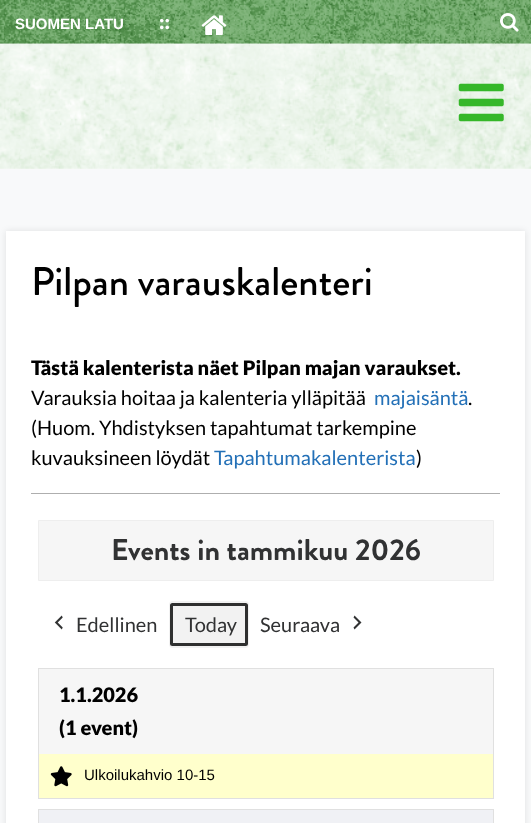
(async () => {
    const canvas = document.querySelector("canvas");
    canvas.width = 531;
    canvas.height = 823;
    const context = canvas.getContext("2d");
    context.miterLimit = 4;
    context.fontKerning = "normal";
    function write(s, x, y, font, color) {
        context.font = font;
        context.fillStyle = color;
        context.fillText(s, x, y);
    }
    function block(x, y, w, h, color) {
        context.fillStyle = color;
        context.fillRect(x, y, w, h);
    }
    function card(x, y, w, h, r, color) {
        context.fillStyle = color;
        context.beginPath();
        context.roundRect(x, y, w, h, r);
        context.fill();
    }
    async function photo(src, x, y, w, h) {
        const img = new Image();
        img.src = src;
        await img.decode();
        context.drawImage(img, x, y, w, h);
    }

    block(0, 0, 531, 823, "rgb(248, 249, 250)");
    await photo("media/1.png", 0, 0, 531, 44);
    write("SUOMEN LATU", 15, 29, "bold 15px Liberation Sans", "rgb(255, 255, 255)");
    write("::", 159, 29, "900 20px Lato", "rgb(255, 255, 255)");
    await photo("media/2.png", 201, 15, 26, 20);
    await photo("media/3.png", 500, 13, 19, 19);
    await photo("media/4.png", 0, 43, 531, 126);
    await photo("media/5.png", 458, 83, 46, 39);
    context.fillStyle = "rgba(0, 0, 0, 0.1)";
    context.filter = "blur(3px)";
    context.beginPath();
    context.rect(6, 231, 519, 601);
    context.fill();
    context.filter = "none";
    block(6, 231, 519, 592, "rgb(255, 255, 255)");
    write("Pilpan varauskalenteri", 31, 295, "500 40px Brandon Grotesque", "rgb(0, 0, 0)");
    write("Tästä kalenterista näet Pilpan majan varaukset.", 31, 375, "900 20px Lato", "rgb(0, 0, 0)");
    write("Varauksia hoitaa ja kalenteria ylläpitää", 31, 405, "20px Lato", "rgb(0, 0, 0)");
    write("majaisäntä", 374, 405, "20px Lato", "rgb(35, 112, 183)");
    write(".", 468, 405, "20px Lato", "rgb(0, 0, 0)");
    write("(Huom. Yhdistyksen tapahtumat tarkempine", 31, 435, "20px Lato", "rgb(0, 0, 0)");
    write("kuvauksineen löydät", 31, 465, "20px Lato", "rgb(0, 0, 0)");
    write("Tapahtumakalenterista", 214, 465, "20px Lato", "rgb(35, 112, 183)");
    write(")", 416, 465, "20px Lato", "rgb(0, 0, 0)");
    block(31, 493, 469, 1, "rgb(174, 174, 174)");
    context.fillStyle = "rgb(246, 246, 246)";
    context.beginPath();
    context.rect(38.5, 520.5, 455, 60);
    context.fill();
    context.strokeStyle = "rgb(238, 238, 238)";
    context.stroke();
    write("Events in tammikuu 2026", 111, 560, "bold 30px Brandon Grotesque", "rgb(49, 50, 51)");
    await photo("media/6.png", 54, 615, 9, 15);
    write("Edellinen", 76, 632, "20px Lato", "rgb(49, 50, 51)");
    card(169, 601, 80, 47, 4, "rgb(242, 242, 242)");
    context.beginPath();
    context.roundRect(171.5, 604.5, 75, 40, 1);
    context.strokeStyle = "rgb(47, 48, 48)";
    context.lineWidth = 3;
    context.stroke();
    write("Today", 185, 632, "20px Lato", "rgb(49, 50, 51)");
    write("Seuraava", 260, 632, "20px Lato", "rgb(49, 50, 51)");
    await photo("media/7.png", 353, 615, 9, 15);
    context.strokeStyle = "rgb(224, 224, 224)";
    context.lineWidth = 1;
    context.strokeRect(38.5, 668.5, 455, 130);
    block(39, 669, 454, 85, "rgb(246, 246, 246)");
    write("1.1.2026", 59, 702, "900 20px Lato", "rgb(0, 0, 0)");
    write("(1 event)", 59, 735, "900 20px Lato", "rgb(0, 0, 0)");
    block(39, 754, 454, 44, "rgb(255, 255, 204)");
    await photo("media/8.png", 50, 766, 22, 21);
    write("Ulkoilukahvio 10-15", 84, 780, "15px Liberation Sans", "rgb(0, 0, 0)");
    context.strokeRect(38.5, 809.5, 455, 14);
    block(39, 810, 454, 13, "rgb(240, 241, 245)");
})();
